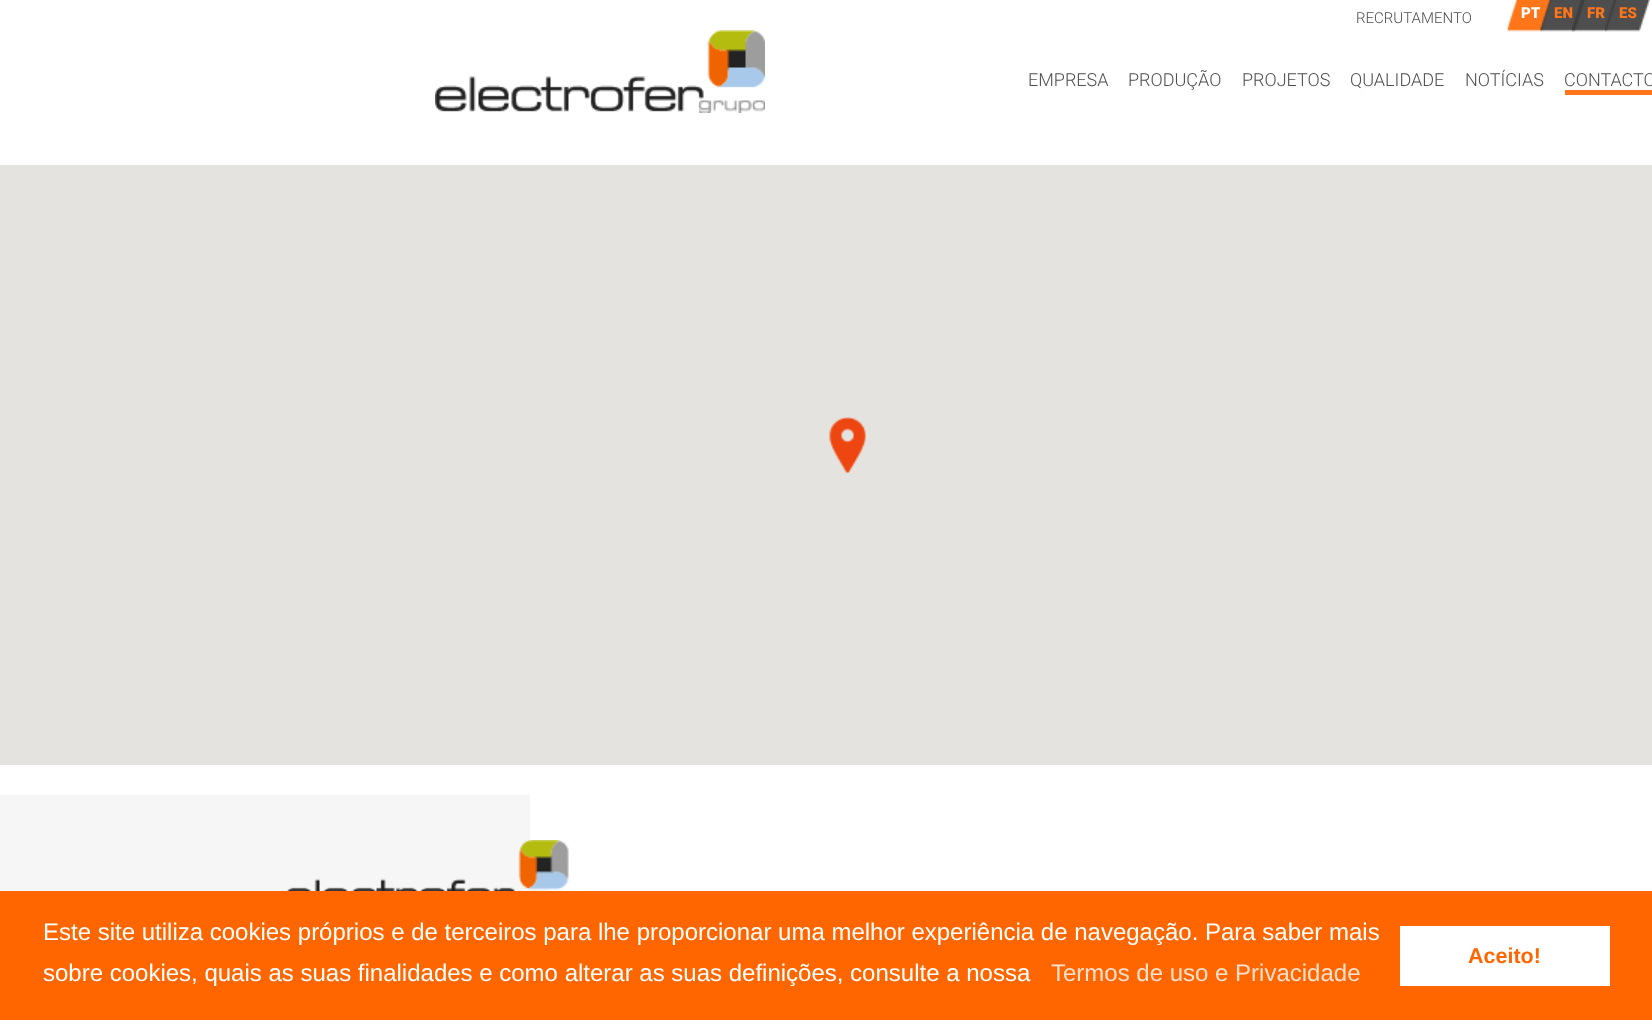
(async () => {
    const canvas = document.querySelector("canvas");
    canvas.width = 1652;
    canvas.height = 1020;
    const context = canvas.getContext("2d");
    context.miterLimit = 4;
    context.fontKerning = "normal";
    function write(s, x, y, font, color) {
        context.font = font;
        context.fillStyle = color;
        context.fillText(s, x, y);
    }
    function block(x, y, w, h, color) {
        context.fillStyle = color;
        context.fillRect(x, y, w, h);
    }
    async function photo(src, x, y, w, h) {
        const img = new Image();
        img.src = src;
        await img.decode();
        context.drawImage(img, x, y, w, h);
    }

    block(0, 0, 1652, 1020, "rgb(255, 255, 255)");
    await photo("media/1.png", 435, 30, 330, 83);
    write("RECRUTAMENTO", 1356, 23, "300 15px Roboto", "rgb(78, 78, 78)");
    await photo("media/2.png", 1507, 0, 46, 32);
    write("PT", 1521, 18, "900 15px Roboto", "rgb(255, 255, 255)");
    await photo("media/3.png", 1540, 0, 46, 32);
    write("EN", 1554, 18, "900 15px Roboto", "rgb(255, 117, 26)");
    await photo("media/4.png", 1572, 0, 45, 32);
    write("FR", 1587, 18, "900 15px Roboto", "rgb(255, 117, 26)");
    await photo("media/5.png", 1605, 0, 45, 32);
    write("ES", 1619, 18, "900 15px Roboto", "rgb(255, 117, 26)");
    write("EMPRESA", 1028, 86, "300 18px Roboto", "rgb(78, 78, 78)");
    write("PRODUÇÃO", 1128, 86, "300 18px Roboto", "rgb(78, 78, 78)");
    write("PROJETOS", 1242, 86, "300 18px Roboto", "rgb(78, 78, 78)");
    write("QUALIDADE", 1350, 86, "300 18px Roboto", "rgb(78, 78, 78)");
    write("NOTÍCIAS", 1465, 86, "300 18px Roboto", "rgb(78, 78, 78)");
    write("CONTACTO", 1564, 86, "300 18px Roboto", "rgb(78, 78, 78)");
    block(1565, 90, 87, 5, "rgb(255, 117, 26)");
    block(0, 165, 1652, 600, "rgb(229, 227, 223)");
    await photo("media/6.png", 829, 417, 37, 56);
    block(0, 795, 530, 96, "rgb(246, 246, 246)");
    context.beginPath();
    context.moveTo(1164, 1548);
    context.lineTo(530, 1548);
    context.lineTo(530, 870);
    context.closePath();
    context.fill();
    await photo("media/7.png", 286, 840, 283, 51);
    block(0, 891, 1652, 129, "rgb(255, 102, 0)");
    write("Este site utiliza cookies próprios e de terceiros para lhe proporcionar uma melhor experiência de navegação. Para saber mais", 43, 940, "24px Liberation Sans", "rgb(255, 255, 255)");
    write("sobre cookies, quais as suas finalidades e como alterar as suas definições, consulte a nossa", 43, 981, "24px Liberation Sans", "rgb(255, 255, 255)");
    write("Termos de uso e Privacidade", 1051, 981, "24px Liberation Sans", "rgb(255, 224, 204)");
    block(1400, 926, 210, 60, "rgb(255, 255, 255)");
    write("Aceito!", 1468, 963, "bold 21.5px Liberation Sans", "rgb(255, 102, 0)");
})();
